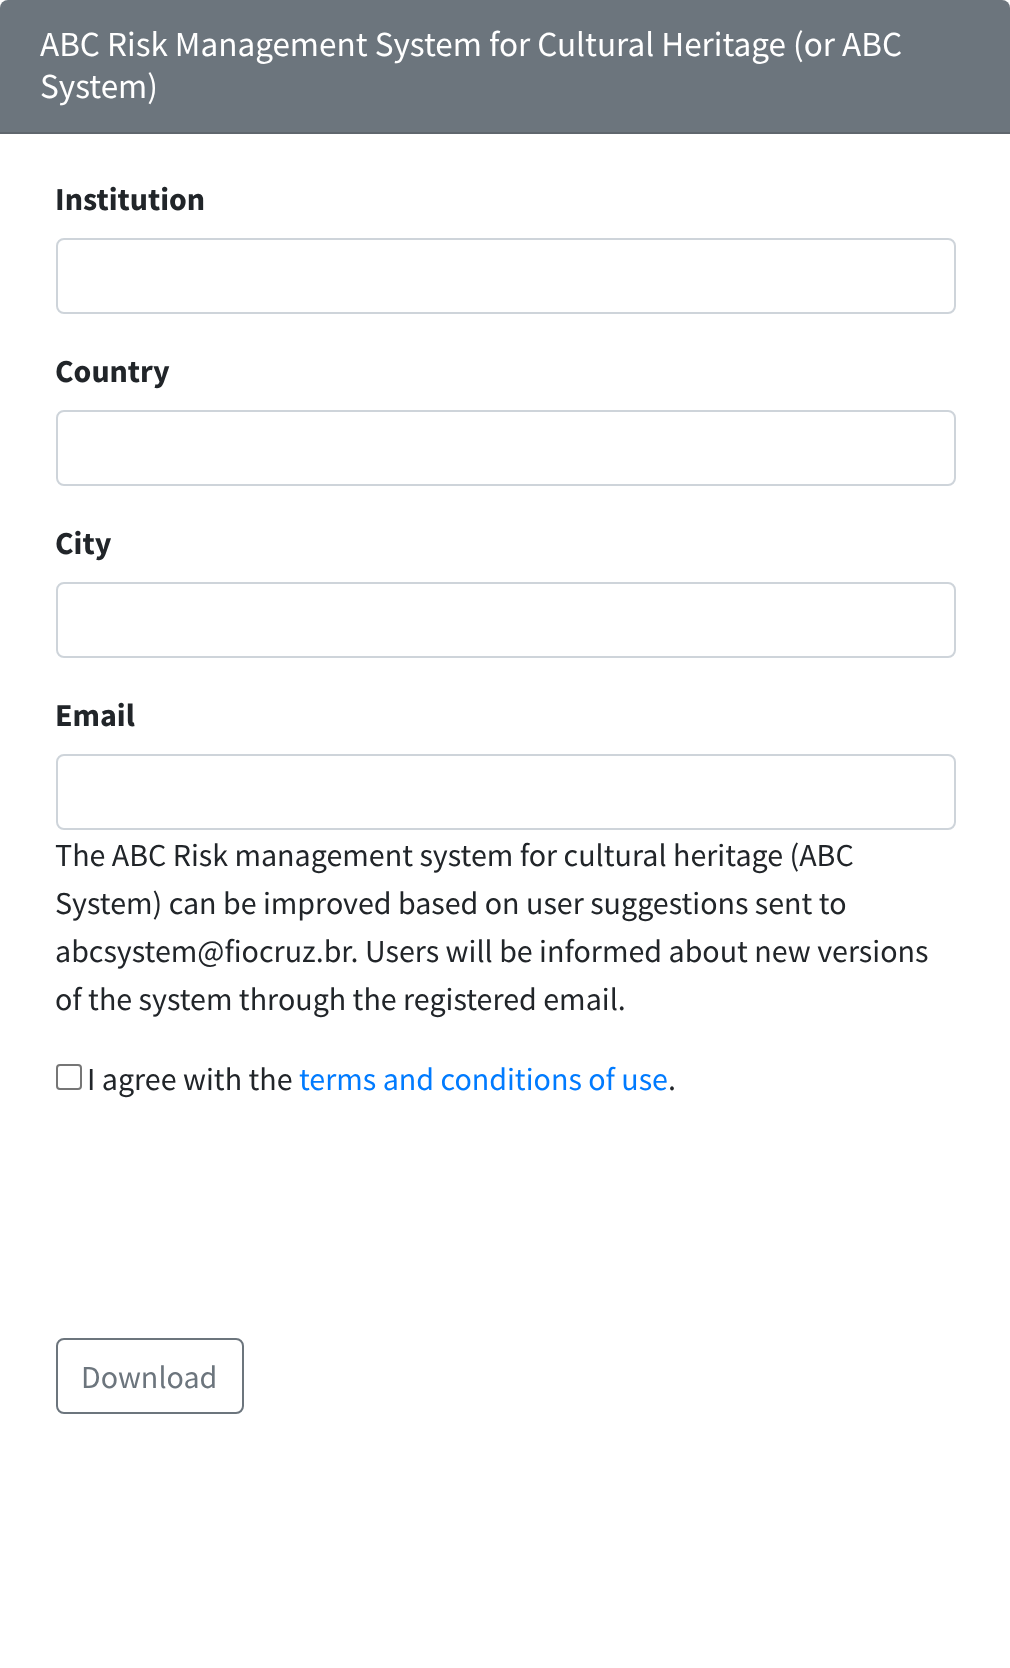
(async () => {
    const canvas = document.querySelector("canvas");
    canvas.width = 1010;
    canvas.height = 1668;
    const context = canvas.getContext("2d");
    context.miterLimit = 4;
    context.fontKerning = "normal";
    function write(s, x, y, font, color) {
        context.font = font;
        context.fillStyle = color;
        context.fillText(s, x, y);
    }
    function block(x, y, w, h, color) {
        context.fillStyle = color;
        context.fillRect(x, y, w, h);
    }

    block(0, 0, 1010, 1668, "rgb(255, 255, 255)");
    context.fillStyle = "rgb(108, 117, 125)";
    context.beginPath();
    context.roundRect(0, 0, 1010, 134, [8, 8, 0, 0]);
    context.fill();
    block(0, 132, 1010, 2, "rgb(95, 102, 109)");
    write("ABC Risk Management System for Cultural Heritage (or ABC", 40, 56, "35.2px Source Sans Pro", "rgb(255, 255, 255)");
    write("System)", 40, 98, "35.2px Source Sans Pro", "rgb(255, 255, 255)");
    write("Institution", 55, 210, "bold 32px Source Sans Pro", "rgb(33, 37, 41)");
    context.beginPath();
    context.roundRect(57, 239, 898, 74, 7);
    context.strokeStyle = "rgb(206, 212, 218)";
    context.lineWidth = 2;
    context.stroke();
    write("Country", 55, 382, "bold 32px Source Sans Pro", "rgb(33, 37, 41)");
    context.beginPath();
    context.roundRect(57, 411, 898, 74, 7);
    context.stroke();
    write("City", 55, 554, "bold 32px Source Sans Pro", "rgb(33, 37, 41)");
    context.beginPath();
    context.roundRect(57, 583, 898, 74, 7);
    context.stroke();
    write("Email", 55, 726, "bold 32px Source Sans Pro", "rgb(33, 37, 41)");
    context.beginPath();
    context.roundRect(57, 755, 898, 74, 7);
    context.stroke();
    write("The ABC Risk management system for cultural heritage (ABC", 55, 866, "32px Source Sans Pro", "rgb(33, 37, 41)");
    write("System) can be improved based on user suggestions sent to", 55, 914, "32px Source Sans Pro", "rgb(33, 37, 41)");
    write("abcsystem@fiocruz.br. Users will be informed about new versions", 55, 962, "32px Source Sans Pro", "rgb(33, 37, 41)");
    write("of the system through the registered email.", 55, 1010, "32px Source Sans Pro", "rgb(33, 37, 41)");
    context.beginPath();
    context.roundRect(57, 1065, 24, 24, 3);
    context.strokeStyle = "rgb(118, 118, 118)";
    context.stroke();
    write("I agree with the", 87, 1090, "32px Source Sans Pro", "rgb(33, 37, 41)");
    write("terms and conditions of use", 299, 1090, "32px Source Sans Pro", "rgb(0, 123, 255)");
    write(".", 668, 1090, "32px Source Sans Pro", "rgb(33, 37, 41)");
    context.beginPath();
    context.roundRect(57, 1339, 186, 74, 7);
    context.strokeStyle = "rgb(108, 117, 125)";
    context.stroke();
    write("Download", 81, 1388, "32px Source Sans Pro", "rgb(108, 117, 125)");
})();
